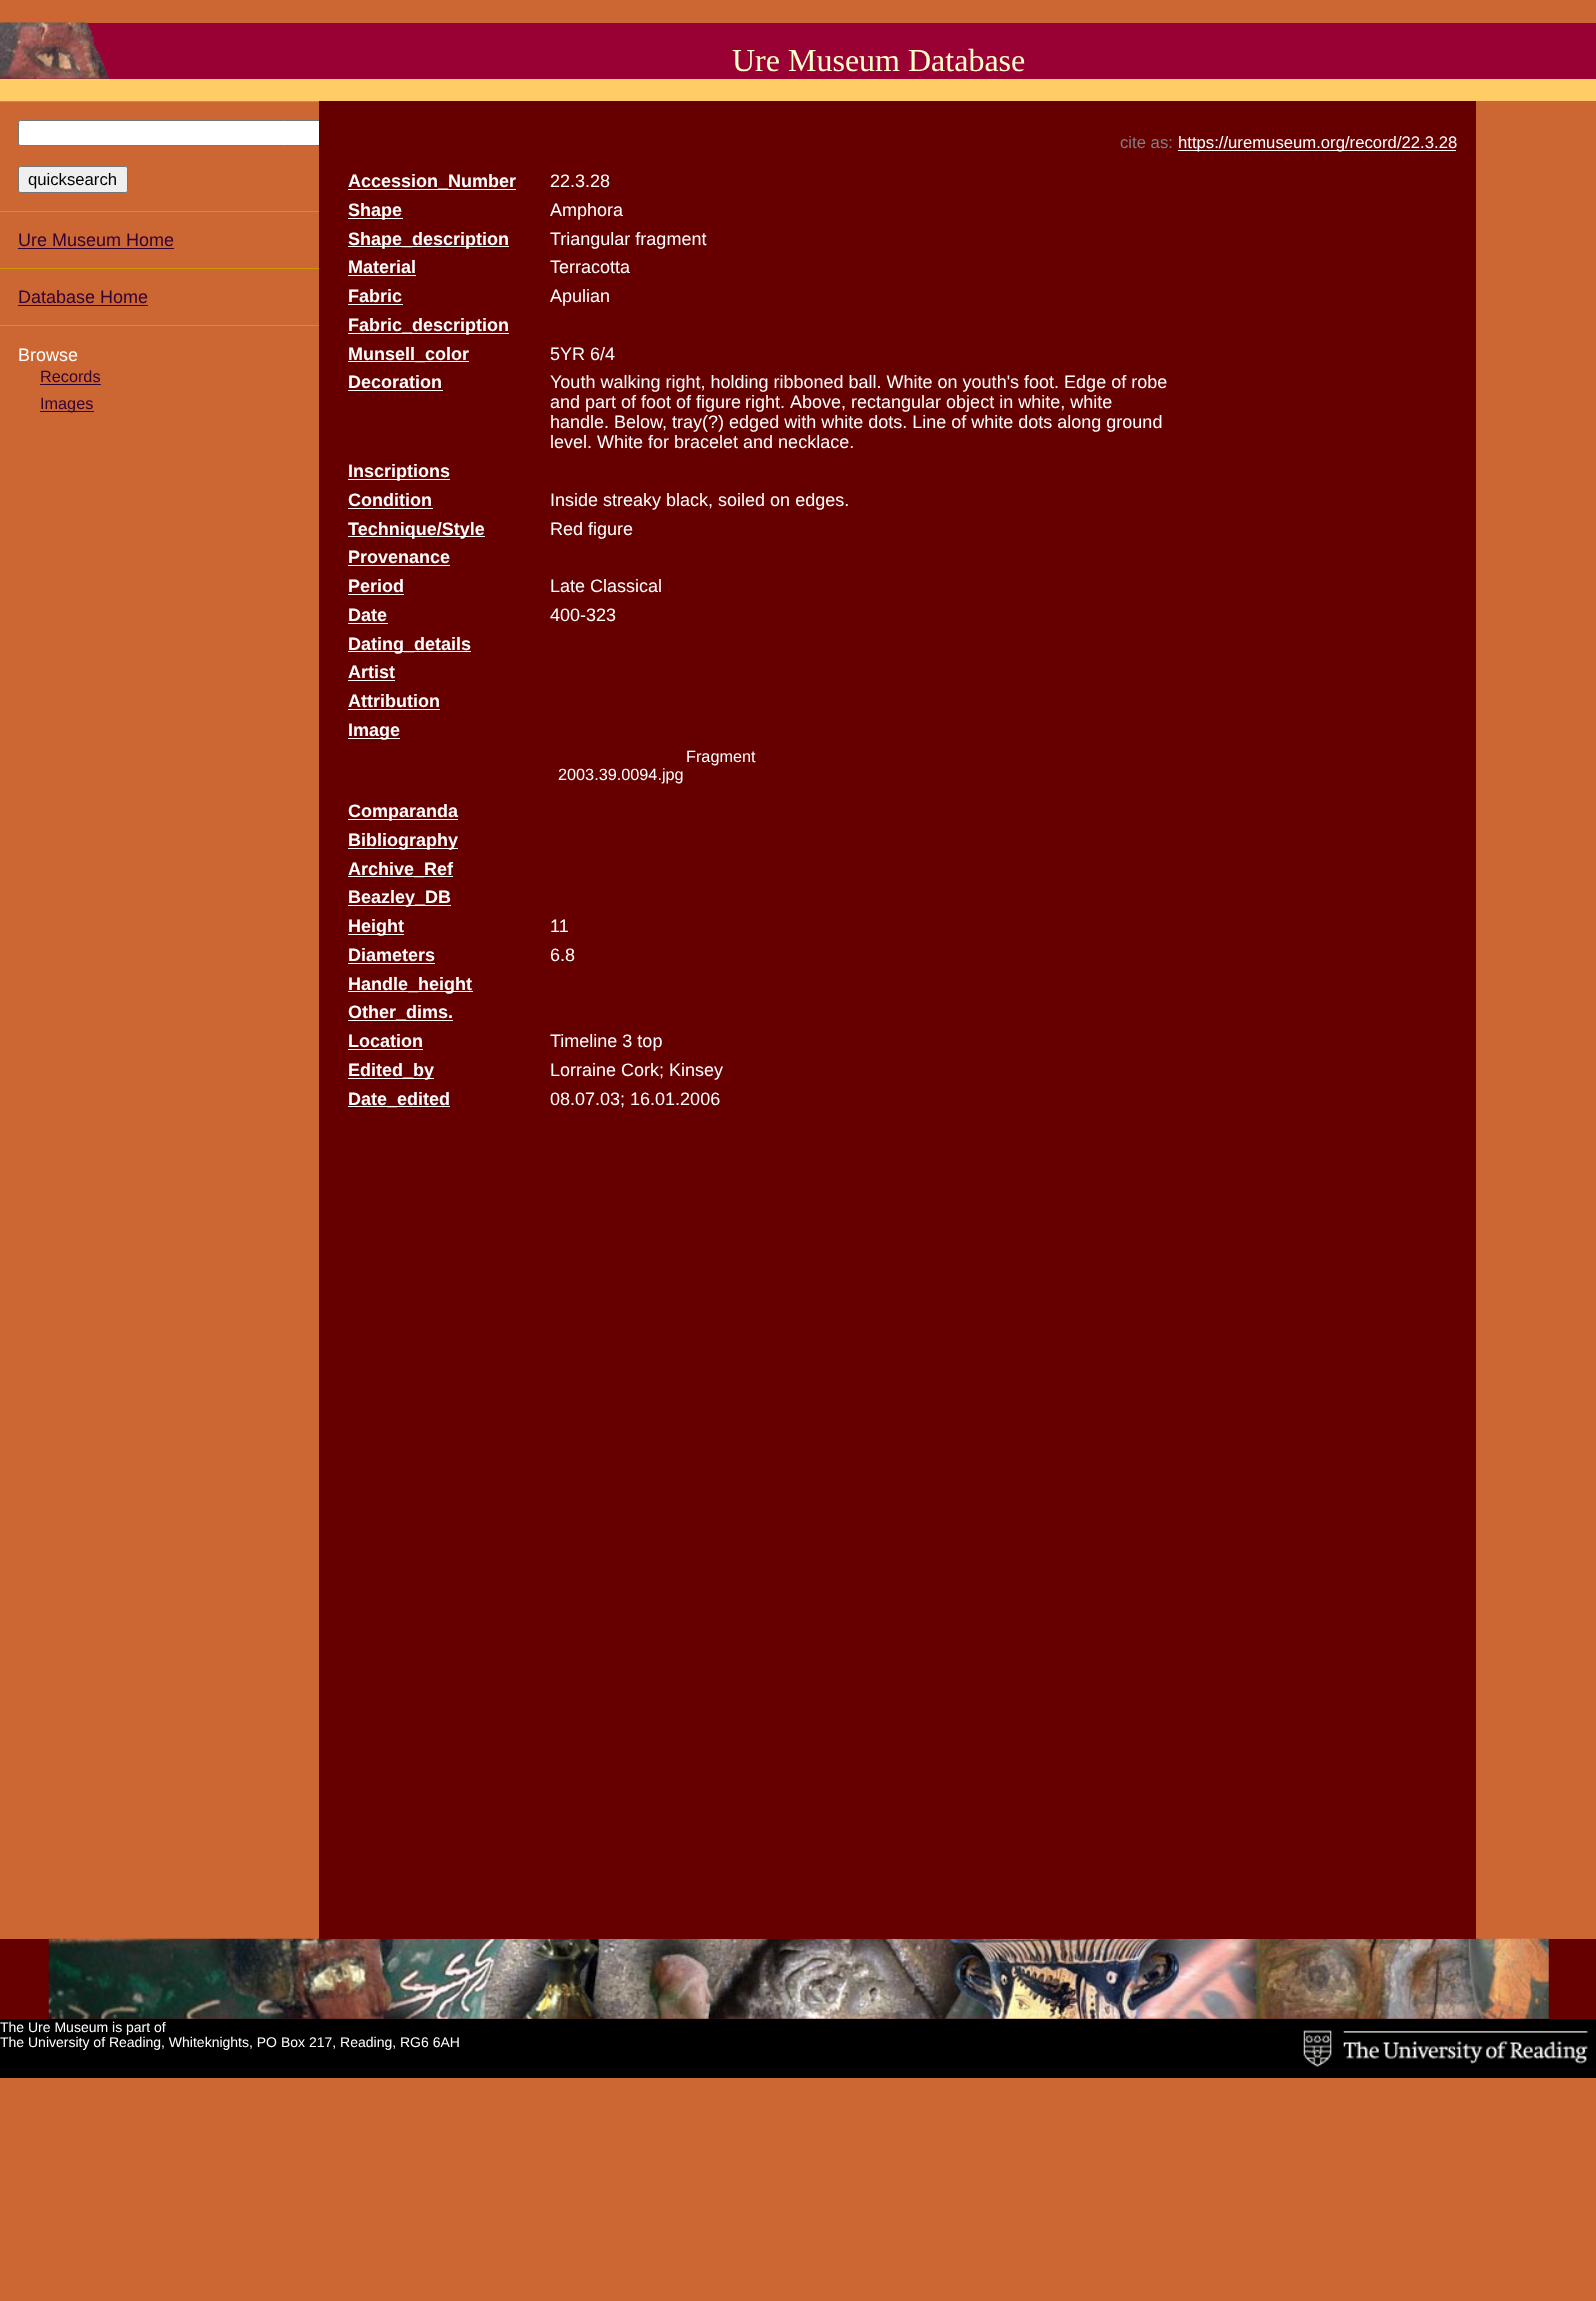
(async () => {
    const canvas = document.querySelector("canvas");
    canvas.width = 1596;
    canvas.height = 2301;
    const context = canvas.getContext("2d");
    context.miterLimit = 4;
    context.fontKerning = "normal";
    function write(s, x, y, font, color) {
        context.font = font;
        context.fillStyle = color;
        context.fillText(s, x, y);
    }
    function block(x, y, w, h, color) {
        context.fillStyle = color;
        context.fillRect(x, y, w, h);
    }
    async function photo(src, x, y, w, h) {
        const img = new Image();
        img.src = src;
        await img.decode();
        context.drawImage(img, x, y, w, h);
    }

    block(0, 0, 1596, 2301, "rgb(204, 102, 51)");
    block(0, 23, 1596, 56, "rgb(153, 0, 51)");
    await photo("media/1.png", 0, 22, 109, 57);
    write("Ure Museum Database", 732, 71, "32px Liberation Serif", "rgb(255, 255, 204)");
    block(0, 79, 1596, 22, "rgb(255, 204, 102)");
    block(0, 101, 319, 1, "rgb(204, 153, 0)");
    context.fillStyle = "rgb(255, 255, 255)";
    context.beginPath();
    context.roundRect(18.5, 120.5, 530, 25, 2);
    context.fill();
    context.strokeStyle = "rgb(118, 118, 118)";
    context.stroke();
    context.fillStyle = "rgb(239, 239, 239)";
    context.beginPath();
    context.roundRect(18.5, 166.5, 109, 26, 2);
    context.fill();
    context.stroke();
    write("quicksearch", 28, 185, "16.7px Liberation Sans", "rgb(0, 0, 0)");
    block(0, 211, 319, 1, "rgb(204, 153, 0)");
    write("Ure Museum Home", 18, 246, "18px Liberation Sans", "rgb(51, 0, 51)");
    block(18, 248, 156, 1, "rgb(51, 0, 51)");
    block(0, 268, 319, 1, "rgb(204, 153, 0)");
    write("Database Home", 18, 303, "18px Liberation Sans", "rgb(51, 0, 51)");
    block(18, 305, 130, 1, "rgb(51, 0, 51)");
    block(0, 325, 319, 1, "rgb(204, 153, 0)");
    write("Browse", 18, 361, "18px Liberation Sans", "rgb(255, 255, 255)");
    write("Records", 40, 382, "16.25px Liberation Sans", "rgb(51, 0, 51)");
    block(40, 384, 61, 1, "rgb(51, 0, 51)");
    block(40, 411, 54, 1, "rgb(51, 0, 51)");
    write("Images", 40, 409, "16.25px Liberation Sans", "rgb(51, 0, 51)");
    block(0, 1939, 1596, 80, "rgb(102, 0, 0)");
    await photo("media/2.png", 48, 1938, 1501, 81);
    block(319, 101, 1157, 1838, "rgb(102, 0, 0)");
    write("cite as:", 1120, 148, "16.7px Liberation Sans", "rgb(128, 128, 128)");
    block(1178, 150, 278, 1, "rgb(255, 255, 255)");
    write("https://uremuseum.org/record/22.3.28", 1178, 148, "16.7px Liberation Sans", "rgb(255, 255, 255)");
    block(348, 189, 168, 1, "rgb(255, 255, 255)");
    write("Accession_Number", 348, 187, "bold 18px Liberation Sans", "rgb(255, 255, 255)");
    write("22.3.28", 550, 187, "18px Liberation Sans", "rgb(255, 255, 255)");
    block(348, 218, 55, 1, "rgb(255, 255, 255)");
    write("Shape", 348, 216, "bold 18px Liberation Sans", "rgb(255, 255, 255)");
    write("Amphora", 550, 216, "18px Liberation Sans", "rgb(255, 255, 255)");
    block(348, 246, 161, 1, "rgb(255, 255, 255)");
    write("Shape_description", 348, 245, "bold 18px Liberation Sans", "rgb(255, 255, 255)");
    write("Triangular fragment", 550, 245, "18px Liberation Sans", "rgb(255, 255, 255)");
    write("Material", 348, 273, "bold 18px Liberation Sans", "rgb(255, 255, 255)");
    block(348, 275, 68, 1, "rgb(255, 255, 255)");
    write("Terracotta", 550, 273, "18px Liberation Sans", "rgb(255, 255, 255)");
    write("Fabric", 348, 302, "bold 18px Liberation Sans", "rgb(255, 255, 255)");
    block(348, 304, 55, 1, "rgb(255, 255, 255)");
    write("Apulian", 550, 302, "18px Liberation Sans", "rgb(255, 255, 255)");
    block(348, 333, 161, 1, "rgb(255, 255, 255)");
    write("Fabric_description", 348, 331, "bold 18px Liberation Sans", "rgb(255, 255, 255)");
    block(348, 361, 121, 1, "rgb(255, 255, 255)");
    write("Munsell_color", 348, 360, "bold 18px Liberation Sans", "rgb(255, 255, 255)");
    write("5YR 6/4", 550, 360, "18px Liberation Sans", "rgb(255, 255, 255)");
    write("Decoration", 348, 388, "bold 18px Liberation Sans", "rgb(255, 255, 255)");
    block(348, 390, 95, 1, "rgb(255, 255, 255)");
    write("Youth walking right, holding ribboned ball. White on youth's foot. Edge of robe", 550, 388, "18px Liberation Sans", "rgb(255, 255, 255)");
    write("and part of foot of figure", 550, 408, "18px Liberation Sans", "rgb(255, 255, 255)");
    write("right.", 745, 408, "18px Liberation Sans", "rgb(255, 255, 255)");
    write("Above, rectangular object in white, white", 790, 408, "18px Liberation Sans", "rgb(255, 255, 255)");
    write("handle. Below, tray(?) edged with white dots. Line of white dots along ground", 550, 428, "18px Liberation Sans", "rgb(255, 255, 255)");
    write("level. White for bracelet and necklace.", 550, 448, "18px Liberation Sans", "rgb(255, 255, 255)");
    block(348, 479, 102, 1, "rgb(255, 255, 255)");
    write("Inscriptions", 348, 477, "bold 18px Liberation Sans", "rgb(255, 255, 255)");
    write("Condition", 348, 506, "bold 18px Liberation Sans", "rgb(255, 255, 255)");
    block(348, 508, 85, 1, "rgb(255, 255, 255)");
    write("Inside streaky black, soiled on edges.", 550, 506, "18px Liberation Sans", "rgb(255, 255, 255)");
    block(348, 536, 137, 1, "rgb(255, 255, 255)");
    write("Technique/Style", 348, 535, "bold 18px Liberation Sans", "rgb(255, 255, 255)");
    write("Red figure", 550, 535, "18px Liberation Sans", "rgb(255, 255, 255)");
    write("Provenance", 348, 563, "bold 18px Liberation Sans", "rgb(255, 255, 255)");
    block(348, 565, 102, 1, "rgb(255, 255, 255)");
    write("Period", 348, 592, "bold 18px Liberation Sans", "rgb(255, 255, 255)");
    block(348, 594, 56, 1, "rgb(255, 255, 255)");
    write("Late Classical", 550, 592, "18px Liberation Sans", "rgb(255, 255, 255)");
    write("Date", 348, 621, "bold 18px Liberation Sans", "rgb(255, 255, 255)");
    block(348, 623, 40, 1, "rgb(255, 255, 255)");
    write("400-323", 550, 621, "18px Liberation Sans", "rgb(255, 255, 255)");
    block(348, 651, 123, 1, "rgb(255, 255, 255)");
    write("Dating_details", 348, 650, "bold 18px Liberation Sans", "rgb(255, 255, 255)");
    write("Artist", 348, 678, "bold 18px Liberation Sans", "rgb(255, 255, 255)");
    block(348, 680, 47, 1, "rgb(255, 255, 255)");
    write("Attribution", 348, 707, "bold 18px Liberation Sans", "rgb(255, 255, 255)");
    block(348, 709, 92, 1, "rgb(255, 255, 255)");
    block(348, 738, 52, 1, "rgb(255, 255, 255)");
    write("Image", 348, 736, "bold 18px Liberation Sans", "rgb(255, 255, 255)");
    write("Fragment", 686, 762, "16.25px Liberation Sans", "rgb(255, 255, 255)");
    write("2003.39.0094.jpg", 558, 780, "16.25px Liberation Sans", "rgb(255, 255, 255)");
    block(348, 819, 110, 1, "rgb(255, 255, 255)");
    write("Comparanda", 348, 817, "bold 18px Liberation Sans", "rgb(255, 255, 255)");
    block(348, 848, 110, 1, "rgb(255, 255, 255)");
    write("Bibliography", 348, 846, "bold 18px Liberation Sans", "rgb(255, 255, 255)");
    block(348, 876, 105, 1, "rgb(255, 255, 255)");
    write("Archive_Ref", 348, 875, "bold 18px Liberation Sans", "rgb(255, 255, 255)");
    block(348, 905, 103, 1, "rgb(255, 255, 255)");
    write("Beazley_DB", 348, 903, "bold 18px Liberation Sans", "rgb(255, 255, 255)");
    block(348, 934, 56, 1, "rgb(255, 255, 255)");
    write("Height", 348, 932, "bold 18px Liberation Sans", "rgb(255, 255, 255)");
    write("11", 550, 932, "18px Liberation Sans", "rgb(255, 255, 255)");
    write("Diameters", 348, 961, "bold 18px Liberation Sans", "rgb(255, 255, 255)");
    block(348, 963, 87, 1, "rgb(255, 255, 255)");
    write("6.8", 550, 961, "18px Liberation Sans", "rgb(255, 255, 255)");
    block(348, 991, 125, 1, "rgb(255, 255, 255)");
    write("Handle_height", 348, 990, "bold 18px Liberation Sans", "rgb(255, 255, 255)");
    block(348, 1020, 105, 1, "rgb(255, 255, 255)");
    write("Other_dims.", 348, 1018, "bold 18px Liberation Sans", "rgb(255, 255, 255)");
    write("Location", 348, 1047, "bold 18px Liberation Sans", "rgb(255, 255, 255)");
    block(348, 1049, 75, 1, "rgb(255, 255, 255)");
    write("Timeline 3 top", 550, 1047, "18px Liberation Sans", "rgb(255, 255, 255)");
    block(348, 1078, 86, 1, "rgb(255, 255, 255)");
    write("Edited_by", 348, 1076, "bold 18px Liberation Sans", "rgb(255, 255, 255)");
    write("Lorraine Cork; Kinsey", 550, 1076, "18px Liberation Sans", "rgb(255, 255, 255)");
    block(348, 1106, 102, 1, "rgb(255, 255, 255)");
    write("Date_edited", 348, 1105, "bold 18px Liberation Sans", "rgb(255, 255, 255)");
    write("08.07.03; 16.01.2006", 550, 1105, "18px Liberation Sans", "rgb(255, 255, 255)");
    block(0, 2019, 1596, 59, "rgb(0, 0, 0)");
    await photo("media/3.png", 1303, 2030, 285, 37);
    write("The Ure Museum is part of", 0, 2032, "14px Liberation Sans", "rgb(255, 255, 255)");
    write("The University of Reading, Whiteknights, PO Box 217, Reading, RG6 6AH", 0, 2047, "14px Liberation Sans", "rgb(255, 255, 255)");
})();
